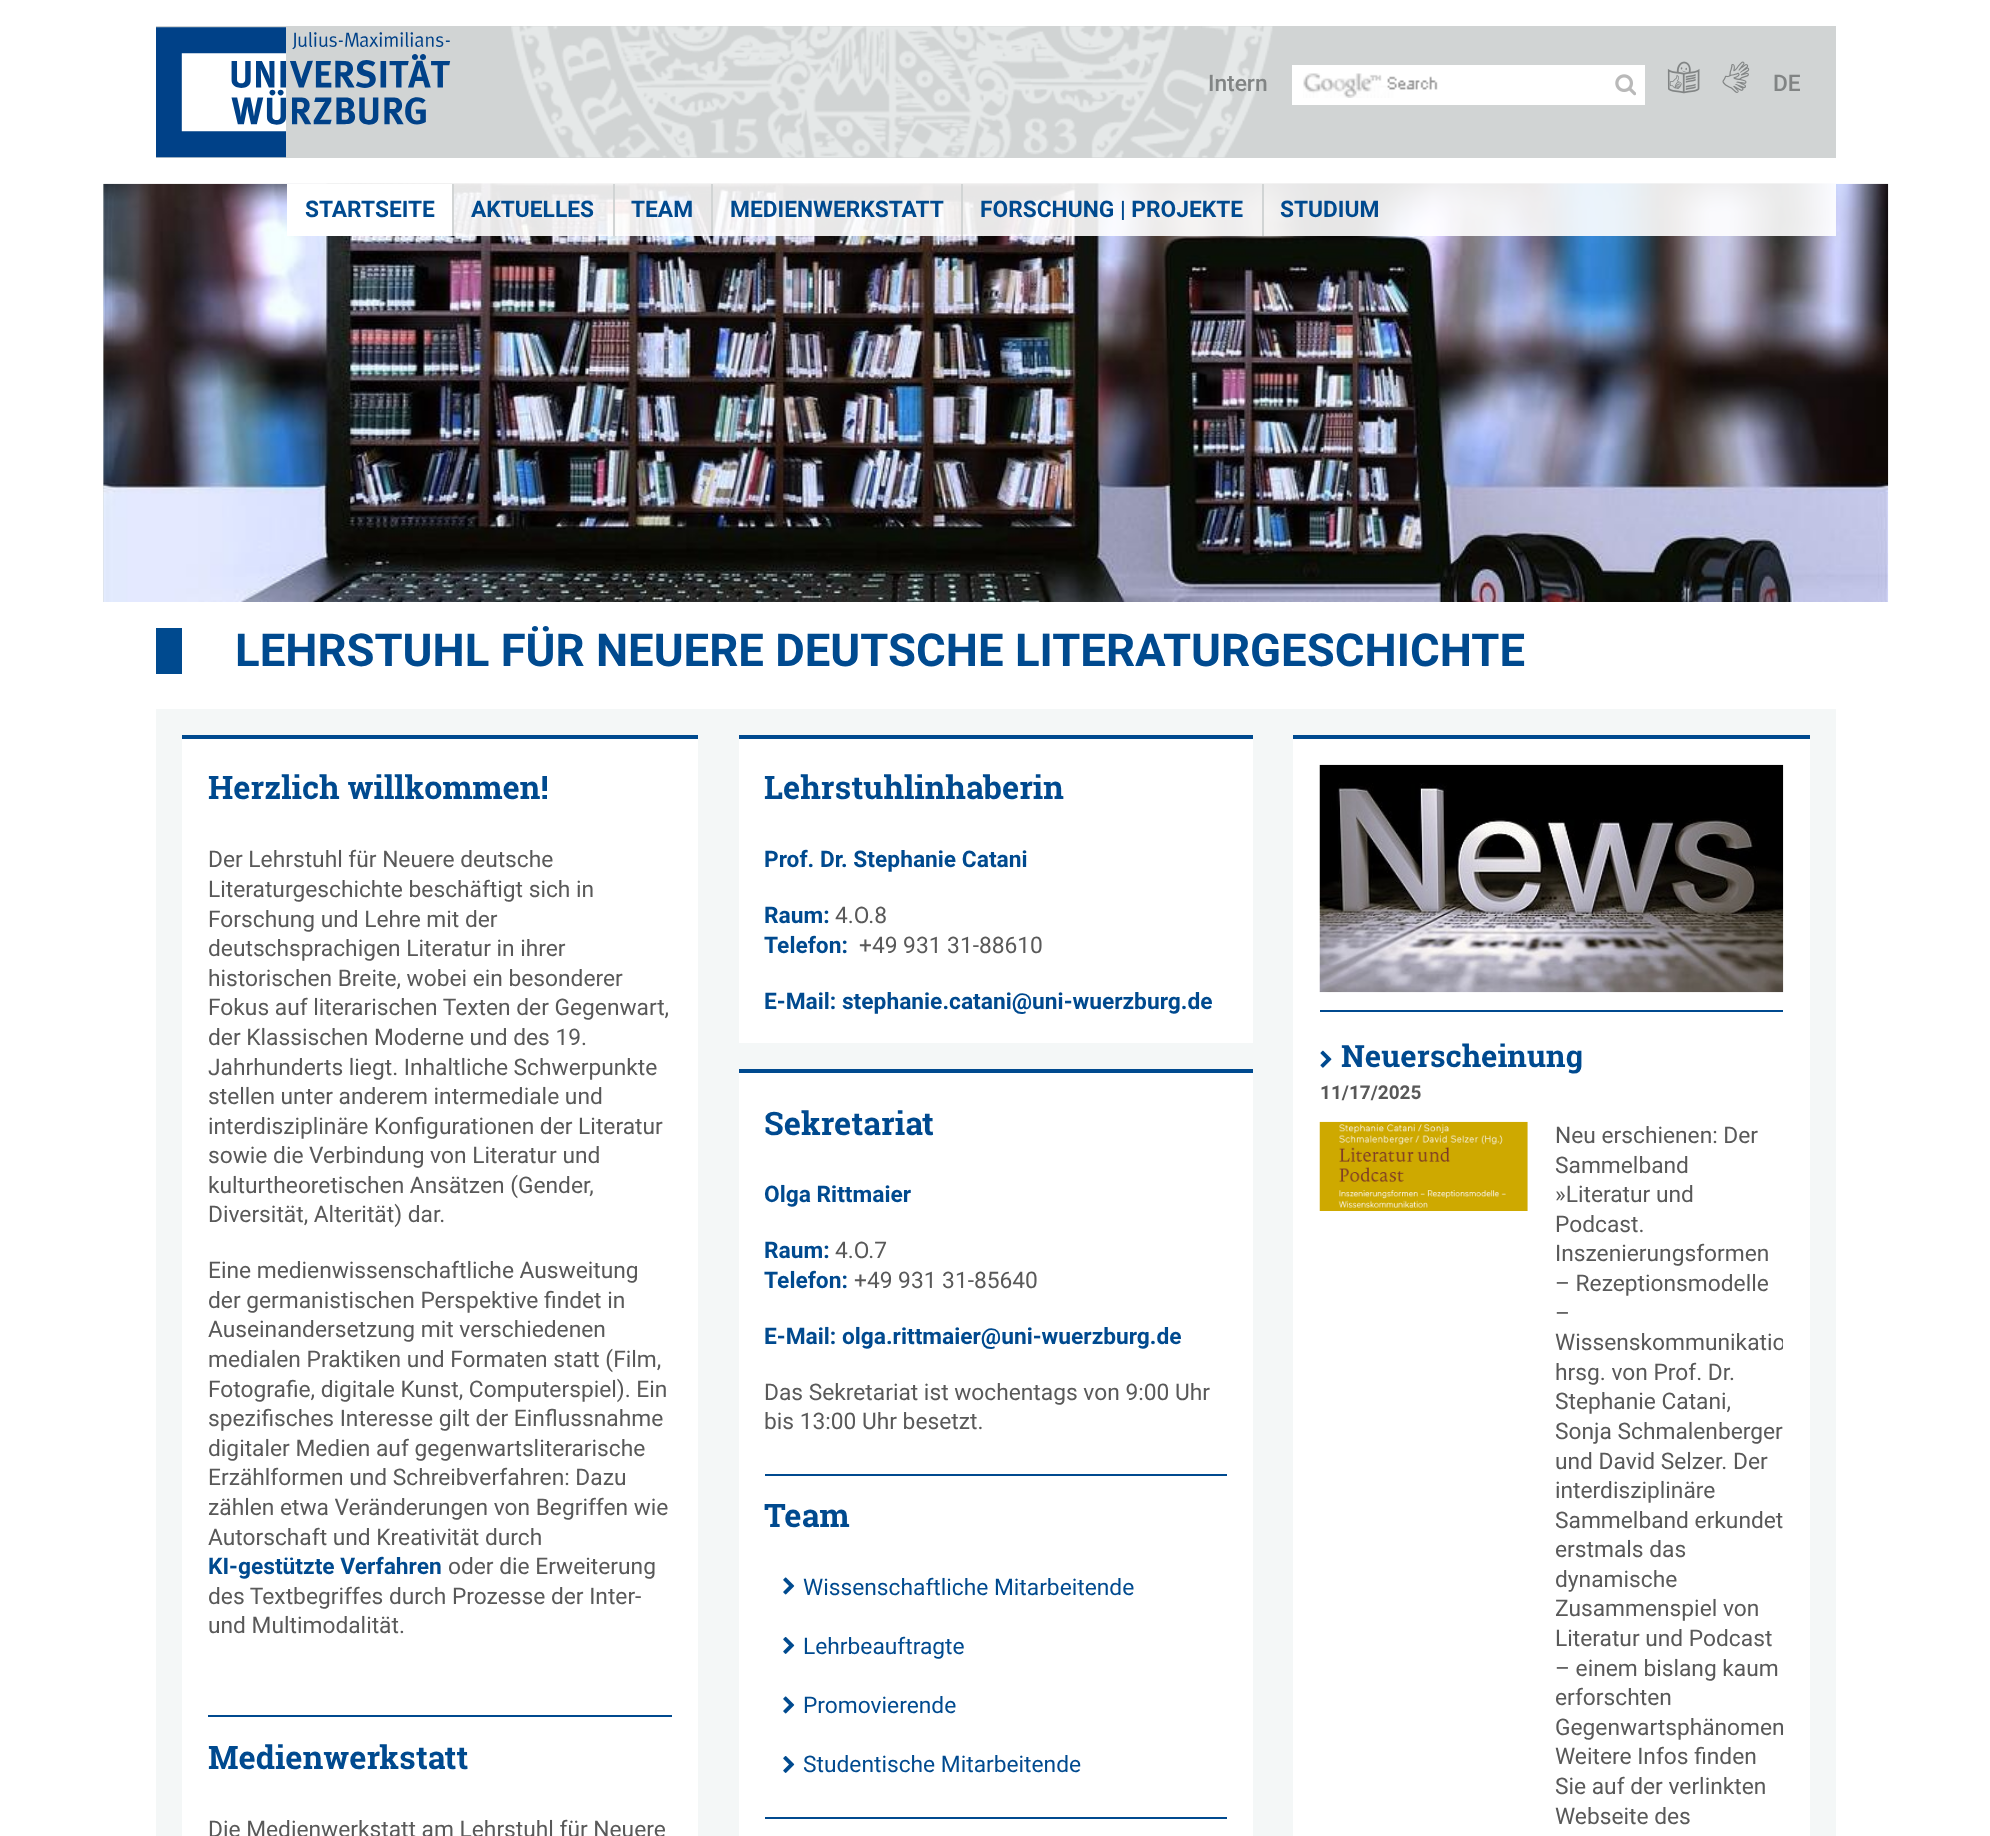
(async () => {
    const canvas = document.querySelector("canvas");
    canvas.width = 1990;
    canvas.height = 1836;
    const context = canvas.getContext("2d");
    context.miterLimit = 4;
    context.fontKerning = "normal";
    function write(s, x, y, font, color) {
        context.font = font;
        context.fillStyle = color;
        context.fillText(s, x, y);
    }
    function block(x, y, w, h, color) {
        context.fillStyle = color;
        context.fillRect(x, y, w, h);
    }
    async function photo(src, x, y, w, h) {
        const img = new Image();
        img.src = src;
        await img.decode();
        context.drawImage(img, x, y, w, h);
    }

    block(0, 0, 1990, 1836, "rgb(255, 255, 255)");
    block(156, 26, 1680, 132, "rgb(209, 212, 212)");
    await photo("media/1.png", 511, 26, 762, 132);
    await photo("media/2.png", 156, 27, 295, 131);
    write("Intern", 1208, 91, "500 22.75px Roboto", "rgb(129, 132, 132)");
    block(1292, 65, 353, 40, "rgb(255, 255, 255)");
    await photo("media/3.png", 1303, 73, 135, 25);
    await photo("media/4.png", 1615, 74, 21, 22);
    await photo("media/5.png", 1667, 61, 33, 33);
    await photo("media/6.png", 1722, 61, 28, 32);
    write("DE", 1773, 91, "500 22.75px Roboto", "rgb(129, 132, 132)");
    block(103, 184, 1, 418, "rgb(213, 218, 213)");
    await photo("media/7.png", 103, 183, 1786, 419);
    block(454, 184, 1382, 52, "rgba(255, 255, 255, 0.9)");
    block(287, 184, 165, 52, "rgb(255, 255, 255)");
    write("STARTSEITE", 305, 217, "bold 22.75px Roboto", "rgb(0, 74, 143)");
    block(452, 184, 2, 52, "rgb(209, 212, 212)");
    write("AKTUELLES", 471, 217, "bold 22.75px Roboto", "rgb(0, 74, 143)");
    block(613, 184, 2, 52, "rgb(209, 212, 212)");
    write("TEAM", 631, 217, "bold 22.75px Roboto", "rgb(0, 74, 143)");
    block(711, 184, 2, 52, "rgb(209, 212, 212)");
    write("MEDIENWERKSTATT", 730, 217, "bold 22.75px Roboto", "rgb(0, 74, 143)");
    block(961, 184, 2, 52, "rgb(209, 212, 212)");
    write("FORSCHUNG | PROJEKTE", 980, 217, "bold 22.75px Roboto", "rgb(0, 74, 143)");
    block(1262, 184, 2, 52, "rgb(209, 212, 212)");
    write("STUDIUM", 1280, 217, "bold 22.75px Roboto", "rgb(0, 74, 143)");
    block(156, 628, 26, 46, "rgb(0, 74, 143)");
    write("LEHRSTUHL FÜR NEUERE DEUTSCHE LITERATURGESCHICHTE", 235, 666, "bold 45.5px Roboto", "rgb(0, 74, 143)");
    block(156, 709, 1680, 1127, "rgb(244, 247, 247)");
    block(182, 739, 516, 1097, "rgb(255, 255, 255)");
    block(182, 735, 516, 4, "rgb(0, 74, 143)");
    write("Herzlich willkommen!", 208, 799, "bold 32.4px Roboto Slab", "rgb(0, 74, 143)");
    write("Der Lehrstuhl für Neuere deutsche", 208, 867, "22.75px Roboto", "rgb(89, 89, 89)");
    write("Literaturgeschichte beschäftigt sich in", 208, 897, "22.75px Roboto", "rgb(89, 89, 89)");
    write("Forschung und Lehre mit der", 208, 927, "22.75px Roboto", "rgb(89, 89, 89)");
    write("deutschsprachigen Literatur in ihrer", 208, 956, "22.75px Roboto", "rgb(89, 89, 89)");
    write("historischen Breite, wobei ein besonderer", 208, 986, "22.75px Roboto", "rgb(89, 89, 89)");
    write("Fokus auf literarischen Texten der Gegenwart,", 208, 1015, "22.75px Roboto", "rgb(89, 89, 89)");
    write("der Klassischen Moderne und des 19.", 208, 1045, "22.75px Roboto", "rgb(89, 89, 89)");
    write("Jahrhunderts liegt. Inhaltliche Schwerpunkte", 208, 1075, "22.75px Roboto", "rgb(89, 89, 89)");
    write("stellen unter anderem intermediale und", 208, 1104, "22.75px Roboto", "rgb(89, 89, 89)");
    write("interdisziplinäre Konfigurationen der Literatur", 208, 1134, "22.75px Roboto", "rgb(89, 89, 89)");
    write("sowie die Verbindung von Literatur und", 208, 1163, "22.75px Roboto", "rgb(89, 89, 89)");
    write("kulturtheoretischen Ansätzen (Gender,", 208, 1193, "22.75px Roboto", "rgb(89, 89, 89)");
    write("Diversität, Alterität) dar.", 208, 1222, "22.75px Roboto", "rgb(89, 89, 89)");
    write("Eine medienwissenschaftliche Ausweitung", 208, 1278, "22.75px Roboto", "rgb(89, 89, 89)");
    write("der germanistischen Perspektive findet in", 208, 1308, "22.75px Roboto", "rgb(89, 89, 89)");
    write("Auseinandersetzung mit verschiedenen", 208, 1337, "22.75px Roboto", "rgb(89, 89, 89)");
    write("medialen Praktiken und Formaten statt (Film,", 208, 1367, "22.75px Roboto", "rgb(89, 89, 89)");
    write("Fotografie, digitale Kunst, Computerspiel). Ein", 208, 1397, "22.75px Roboto", "rgb(89, 89, 89)");
    write("spezifisches Interesse gilt der Einflussnahme", 208, 1426, "22.75px Roboto", "rgb(89, 89, 89)");
    write("digitaler Medien auf gegenwartsliterarische", 208, 1456, "22.75px Roboto", "rgb(89, 89, 89)");
    write("Erzählformen und Schreibverfahren: Dazu", 208, 1485, "22.75px Roboto", "rgb(89, 89, 89)");
    write("zählen etwa Veränderungen von Begriffen wie", 208, 1515, "22.75px Roboto", "rgb(89, 89, 89)");
    write("Autorschaft und Kreativität durch", 208, 1545, "22.75px Roboto", "rgb(89, 89, 89)");
    write("KI-gestützte Verfahren", 208, 1574, "bold 22.75px Roboto", "rgb(0, 74, 143)");
    write("oder die Erweiterung", 448, 1574, "22.75px Roboto", "rgb(89, 89, 89)");
    write("des Textbegriffes durch Prozesse der Inter-", 208, 1604, "22.75px Roboto", "rgb(89, 89, 89)");
    write("und Multimodalität.", 208, 1633, "22.75px Roboto", "rgb(89, 89, 89)");
    block(208, 1715, 464, 2, "rgb(0, 74, 143)");
    write("Medienwerkstatt", 208, 1769, "bold 32.4px Roboto Slab", "rgb(0, 74, 143)");
    write("Die Medienwerkstatt am Lehrstuhl für Neuere", 208, 1837, "22.75px Roboto", "rgb(89, 89, 89)");
    block(739, 739, 514, 304, "rgb(255, 255, 255)");
    block(739, 735, 514, 4, "rgb(0, 74, 143)");
    write("Lehrstuhlinhaberin", 764, 799, "bold 32.4px Roboto Slab", "rgb(0, 74, 143)");
    write("Prof. Dr. Stephanie Catani", 764, 867, "bold 22.75px Roboto", "rgb(0, 74, 143)");
    write("Raum:", 764, 923, "bold 22.75px Roboto", "rgb(0, 74, 143)");
    write("4.O.8", 835, 923, "22.75px Roboto", "rgb(89, 89, 89)");
    write("Telefon:", 764, 953, "bold 22.75px Roboto", "rgb(0, 74, 143)");
    write("+49 931 31-88610", 859, 953, "22.75px Roboto", "rgb(89, 89, 89)");
    write("E-Mail: stephanie.catani@uni-wuerzburg.de", 764, 1009, "bold 22.75px Roboto", "rgb(0, 74, 143)");
    block(739, 1073, 514, 763, "rgb(255, 255, 255)");
    block(739, 1069, 514, 4, "rgb(0, 74, 143)");
    write("Sekretariat", 764, 1135, "bold 32.4px Roboto Slab", "rgb(0, 74, 143)");
    write("Olga Rittmaier", 764, 1202, "bold 22.75px Roboto", "rgb(0, 74, 143)");
    write("Raum:", 764, 1258, "bold 22.75px Roboto", "rgb(0, 74, 143)");
    write("4.O.7", 835, 1258, "22.75px Roboto", "rgb(89, 89, 89)");
    write("Telefon:", 764, 1288, "bold 22.75px Roboto", "rgb(0, 74, 143)");
    write("+49 931 31-85640", 854, 1288, "22.75px Roboto", "rgb(89, 89, 89)");
    write("E-Mail: olga.rittmaier@uni-wuerzburg.de", 764, 1344, "bold 22.75px Roboto", "rgb(0, 74, 143)");
    write("Das Sekretariat ist wochentags von 9:00 Uhr", 764, 1400, "22.75px Roboto", "rgb(89, 89, 89)");
    write("bis 13:00 Uhr besetzt.", 764, 1429, "22.75px Roboto", "rgb(89, 89, 89)");
    block(765, 1474, 462, 2, "rgb(0, 74, 143)");
    write("Team", 764, 1527, "bold 32.4px Roboto Slab", "rgb(0, 74, 143)");
    await photo("media/8.png", 783, 1577, 12, 18);
    write("Wissenschaftliche Mitarbeitende", 803, 1595, "22.75px Roboto", "rgb(0, 74, 143)");
    await photo("media/9.png", 783, 1637, 12, 17);
    write("Lehrbeauftragte", 803, 1654, "22.75px Roboto", "rgb(0, 74, 143)");
    await photo("media/8.png", 783, 1696, 12, 18);
    write("Promovierende", 803, 1713, "22.75px Roboto", "rgb(0, 74, 143)");
    await photo("media/9.png", 783, 1756, 12, 17);
    write("Studentische Mitarbeitende", 803, 1772, "22.75px Roboto", "rgb(0, 74, 143)");
    block(765, 1817, 462, 2, "rgb(0, 74, 143)");
    block(1293, 739, 517, 1097, "rgb(255, 255, 255)");
    block(1293, 735, 517, 4, "rgb(0, 74, 143)");
    await photo("media/10.png", 1319, 764, 465, 229);
    block(1320, 1010, 463, 2, "rgb(0, 74, 143)");
    await photo("media/11.png", 1320, 1050, 12, 18);
    write("Neuerscheinung", 1341, 1067, "bold 30.75px Roboto Slab", "rgb(0, 74, 143)");
    write("11/17/2025", 1320, 1099, "bold 19px Roboto", "rgb(89, 89, 89)");
    await photo("media/12.png", 1319, 1121, 209, 90);
    write("Neu erschienen: Der", 1555, 1143, "22.75px Roboto", "rgb(89, 89, 89)");
    write("Sammelband", 1555, 1173, "22.75px Roboto", "rgb(89, 89, 89)");
    write("»Literatur und", 1555, 1202, "22.75px Roboto", "rgb(89, 89, 89)");
    write("Podcast.", 1555, 1232, "22.75px Roboto", "rgb(89, 89, 89)");
    write("Inszenierungsformen", 1555, 1261, "22.75px Roboto", "rgb(89, 89, 89)");
    write("– Rezeptionsmodelle", 1555, 1291, "22.75px Roboto", "rgb(89, 89, 89)");
    write("–", 1555, 1321, "22.75px Roboto", "rgb(89, 89, 89)");
    context.save();
    context.beginPath();
    context.rect(1320, 1029, 463, 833);
    context.clip();
    write("Wissenskommunikatio", 1555, 1350, "22.75px Roboto", "rgb(89, 89, 89)");
    context.restore();
    write("hrsg. von Prof. Dr.", 1555, 1380, "22.75px Roboto", "rgb(89, 89, 89)");
    write("Stephanie Catani,", 1555, 1409, "22.75px Roboto", "rgb(89, 89, 89)");
    write("Sonja Schmalenberger", 1555, 1439, "22.75px Roboto", "rgb(89, 89, 89)");
    write("und David Selzer. Der", 1555, 1469, "22.75px Roboto", "rgb(89, 89, 89)");
    write("interdisziplinäre", 1555, 1498, "22.75px Roboto", "rgb(89, 89, 89)");
    write("Sammelband erkundet", 1555, 1528, "22.75px Roboto", "rgb(89, 89, 89)");
    write("erstmals das", 1555, 1557, "22.75px Roboto", "rgb(89, 89, 89)");
    write("dynamische", 1555, 1587, "22.75px Roboto", "rgb(89, 89, 89)");
    write("Zusammenspiel von", 1555, 1616, "22.75px Roboto", "rgb(89, 89, 89)");
    write("Literatur und Podcast", 1555, 1646, "22.75px Roboto", "rgb(89, 89, 89)");
    write("– einem bislang kaum", 1555, 1676, "22.75px Roboto", "rgb(89, 89, 89)");
    write("erforschten", 1555, 1705, "22.75px Roboto", "rgb(89, 89, 89)");
    write("Gegenwartsphänomen", 1555, 1735, "22.75px Roboto", "rgb(89, 89, 89)");
    write("Weitere Infos finden", 1555, 1764, "22.75px Roboto", "rgb(89, 89, 89)");
    write("Sie auf der verlinkten", 1555, 1794, "22.75px Roboto", "rgb(89, 89, 89)");
    write("Webseite des", 1555, 1824, "22.75px Roboto", "rgb(89, 89, 89)");
})();
